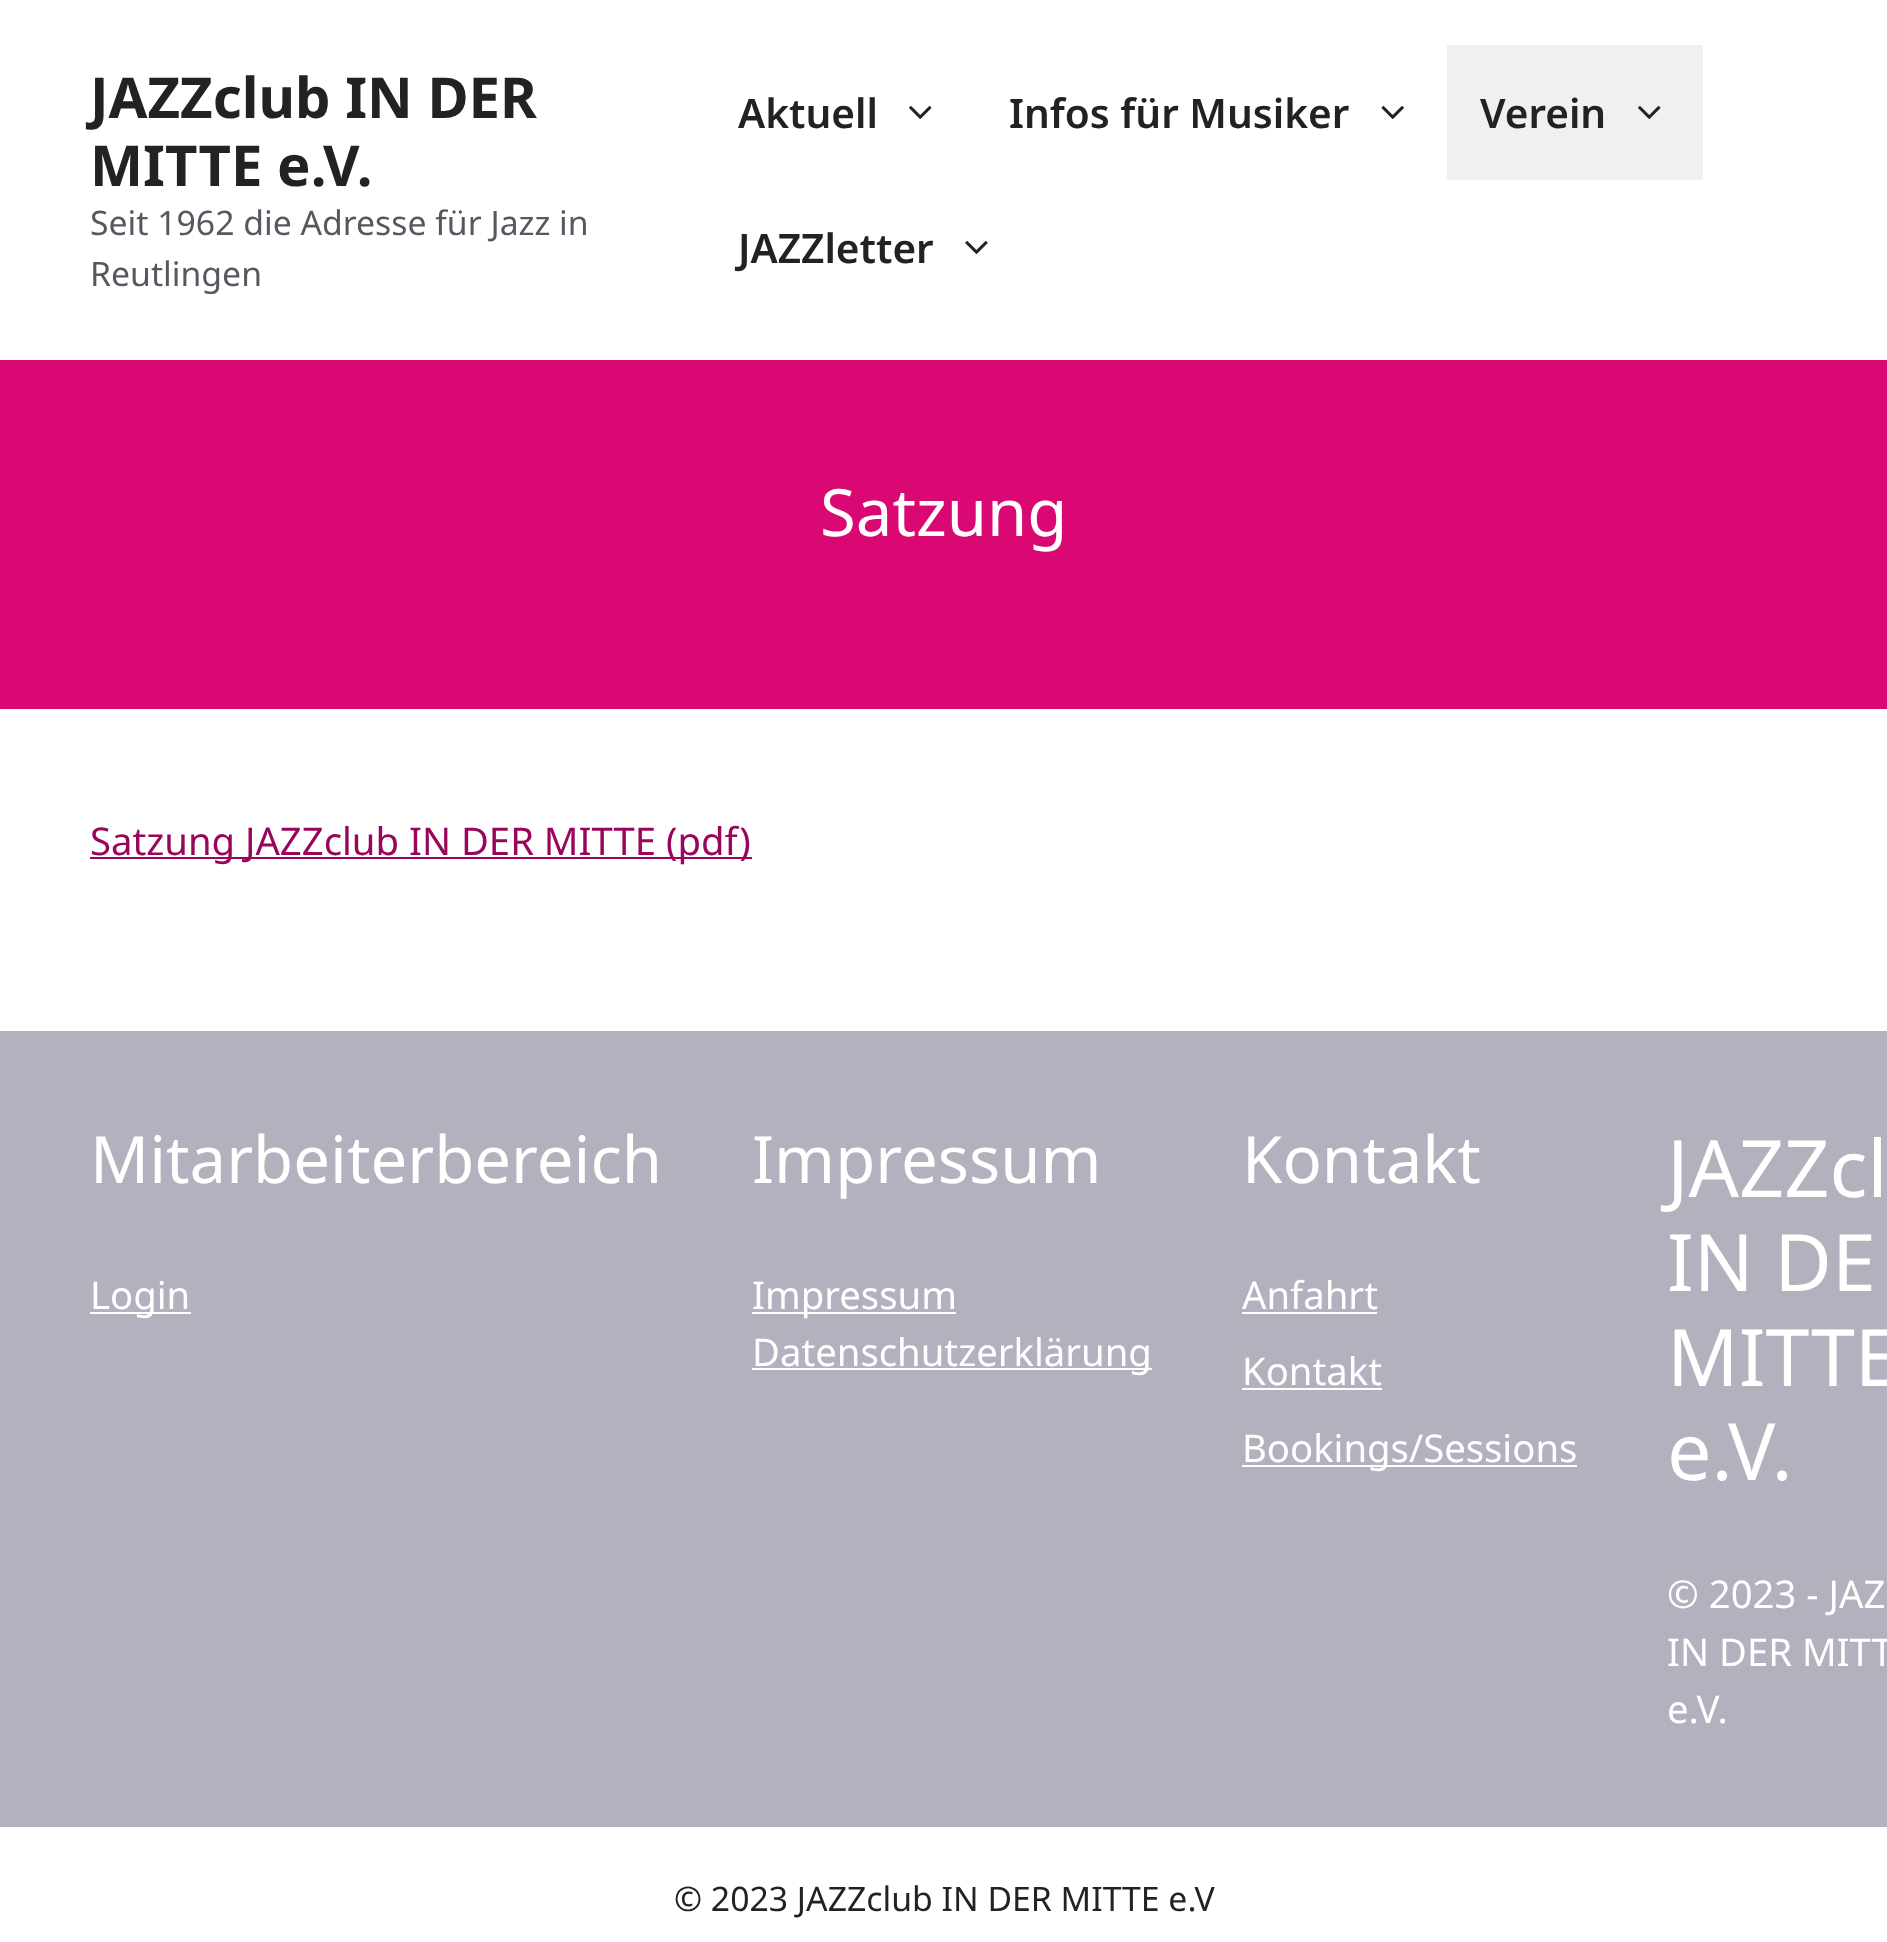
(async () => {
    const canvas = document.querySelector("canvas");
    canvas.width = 1887;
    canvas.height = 1942;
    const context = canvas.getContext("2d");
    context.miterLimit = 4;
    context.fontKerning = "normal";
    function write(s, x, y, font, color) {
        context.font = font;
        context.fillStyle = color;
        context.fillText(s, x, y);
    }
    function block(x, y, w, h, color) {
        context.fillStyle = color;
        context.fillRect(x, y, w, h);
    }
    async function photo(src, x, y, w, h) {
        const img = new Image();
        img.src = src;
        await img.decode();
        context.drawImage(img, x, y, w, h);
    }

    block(0, 0, 1887, 1942, "rgb(255, 255, 255)");
    write("JAZZclub IN DER", 90, 118, "bold 56.25px Noto Sans", "rgb(34, 34, 34)");
    write("MITTE e.V.", 90, 186, "bold 56.25px Noto Sans", "rgb(34, 34, 34)");
    write("Seit 1962 die Adresse für Jazz in", 90, 235, "33.75px Noto Sans", "rgb(87, 87, 96)");
    write("Reutlingen", 90, 286, "33.75px Noto Sans", "rgb(87, 87, 96)");
    write("Aktuell", 738, 128, "600 40.5px Noto Sans", "rgb(34, 34, 34)");
    await photo("media/1.png", 909, 106, 23, 13);
    write("Infos für Musiker", 1009, 128, "600 40.5px Noto Sans", "rgb(34, 34, 34)");
    await photo("media/2.png", 1381, 106, 23, 13);
    block(1447, 45, 256, 135, "rgb(240, 240, 240)");
    write("Verein", 1480, 128, "600 40.5px Noto Sans", "rgb(34, 34, 34)");
    await photo("media/3.png", 1638, 106, 23, 13);
    write("JAZZletter", 738, 263, "600 40.5px Noto Sans", "rgb(34, 34, 34)");
    await photo("media/4.png", 965, 241, 23, 13);
    block(0, 360, 1887, 349, "rgb(218, 8, 115)");
    write("Satzung", 820, 536, "65.25px Noto Sans", "rgb(255, 255, 255)");
    block(90, 857, 662, 2, "rgb(153, 5, 90)");
    write("Satzung JAZZclub IN DER MITTE (pdf)", 90, 855, "38.25px Noto Sans", "rgb(153, 5, 90)");
    block(0, 1031, 1887, 796, "rgb(178, 178, 190)");
    write("Mitarbeiterbereich", 90, 1183, "65.25px Noto Sans", "rgb(255, 255, 255)");
    block(90, 1312, 101, 2, "rgb(255, 255, 255)");
    write("Login", 90, 1309, "38.25px Noto Sans", "rgb(255, 255, 255)");
    write("Impressum", 752, 1183, "65.25px Noto Sans", "rgb(255, 255, 255)");
    block(752, 1312, 204, 2, "rgb(255, 255, 255)");
    write("Impressum", 752, 1309, "38.25px Noto Sans", "rgb(255, 255, 255)");
    block(752, 1368, 400, 2, "rgb(255, 255, 255)");
    write("Datenschutzerklärung", 752, 1366, "38.25px Noto Sans", "rgb(255, 255, 255)");
    write("Kontakt", 1242, 1183, "65.25px Noto Sans", "rgb(255, 255, 255)");
    write("Anfahrt", 1242, 1309, "38.25px Noto Sans", "rgb(255, 255, 255)");
    block(1242, 1312, 135, 2, "rgb(255, 255, 255)");
    write("Kontakt", 1242, 1385, "38.25px Noto Sans", "rgb(255, 255, 255)");
    block(1242, 1388, 140, 2, "rgb(255, 255, 255)");
    block(1242, 1465, 335, 2, "rgb(255, 255, 255)");
    write("Bookings/Sessions", 1242, 1462, "38.25px Noto Sans", "rgb(255, 255, 255)");
    write("JAZZcl", 1667, 1197, "79px Noto Sans", "rgb(255, 255, 255)");
    write("IN DE", 1667, 1291, "79px Noto Sans", "rgb(255, 255, 255)");
    write("MITTE", 1667, 1386, "79px Noto Sans", "rgb(255, 255, 255)");
    write("e.V.", 1667, 1480, "79px Noto Sans", "rgb(255, 255, 255)");
    write("© 2023 - JAZ", 1667, 1608, "38.25px Noto Sans", "rgb(255, 255, 255)");
    write("IN DER MITT", 1667, 1666, "38.25px Noto Sans", "rgb(255, 255, 255)");
    write("e.V.", 1667, 1723, "38.25px Noto Sans", "rgb(255, 255, 255)");
    write("© 2023 JAZZclub IN DER MITTE e.V", 674, 1911, "33.75px Noto Sans", "rgb(34, 34, 34)");
})();
